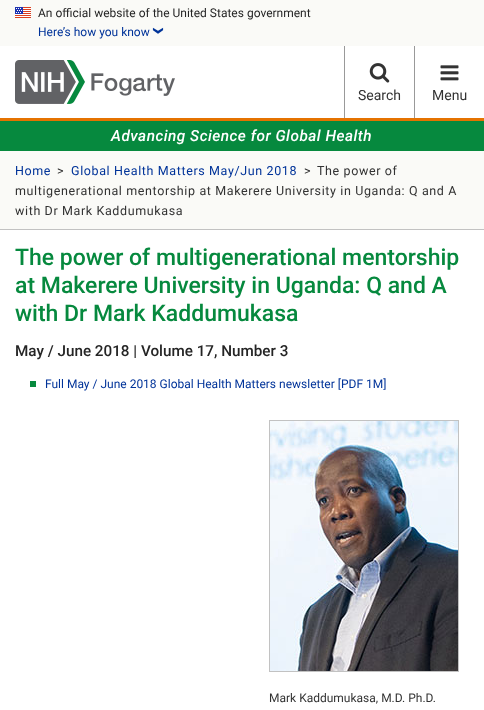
(async () => {
    const canvas = document.querySelector("canvas");
    canvas.width = 484;
    canvas.height = 710;
    const context = canvas.getContext("2d");
    context.miterLimit = 4;
    context.fontKerning = "normal";
    function write(s, x, y, font, color) {
        context.font = font;
        context.fillStyle = color;
        context.fillText(s, x, y);
    }
    function block(x, y, w, h, color) {
        context.fillStyle = color;
        context.fillRect(x, y, w, h);
    }
    async function photo(src, x, y, w, h) {
        const img = new Image();
        img.src = src;
        await img.decode();
        context.drawImage(img, x, y, w, h);
    }

    block(0, 0, 484, 710, "rgb(250, 250, 247)");
    await photo("media/1.png", 15, 7, 16, 11);
    write("An official website of the United States government", 38, 17, "12px Roboto", "rgb(37, 37, 37)");
    write("Here’s how you know", 38, 36, "12px Roboto", "rgb(0, 51, 153)");
    await photo("media/2.png", 152, 27, 12, 7);
    block(0, 46, 484, 72, "rgb(255, 255, 255)");
    await photo("media/3.png", 15, 60, 160, 44);
    block(344, 46, 1, 72, "rgb(153, 153, 153)");
    await photo("media/4.png", 369, 63, 21, 20);
    write("Search", 358, 100, "14px Roboto", "rgb(51, 51, 51)");
    block(414, 46, 1, 72, "rgb(153, 153, 153)");
    await photo("media/5.png", 440, 65, 19, 16);
    write("Menu", 432, 100, "14px Roboto", "rgb(51, 51, 51)");
    block(0, 121, 484, 30, "rgb(6, 137, 62)");
    block(0, 118, 484, 3, "rgb(229, 114, 0)");
    context.letterSpacing = "0.5px";
    write("Advancing Science for Global Health", 111, 141, "italic 500 15.4px Roboto", "rgb(255, 255, 255)");
    context.letterSpacing = "0.62px";
    write("Home", 15, 175, "12.5px Roboto", "rgb(0, 51, 153)");
    write(">", 57, 175, "12.5px Roboto", "rgb(51, 51, 51)");
    write("Global Health Matters May/Jun 2018", 71, 175, "12.5px Roboto", "rgb(0, 51, 153)");
    write(">", 304, 175, "12.5px Roboto", "rgb(51, 51, 51)");
    write("The power of", 317, 175, "12.5px Roboto", "rgb(51, 51, 51)");
    write("multigenerational mentorship at Makerere University in Uganda: Q and A", 15, 195, "12.5px Roboto", "rgb(51, 51, 51)");
    write("with Dr Mark Kaddumukasa", 15, 215, "12.5px Roboto", "rgb(51, 51, 51)");
    block(0, 230, 484, 480, "rgb(255, 255, 255)");
    block(0, 229, 484, 1, "rgb(194, 194, 194)");
    context.letterSpacing = "0px";
    write("The power of multigenerational mentorship", 15, 265, "500 23px Roboto", "rgb(6, 137, 62)");
    write("at Makerere University in Uganda: Q and A", 15, 293, "500 23px Roboto", "rgb(6, 137, 62)");
    write("with Dr Mark Kaddumukasa", 15, 321, "500 23px Roboto", "rgb(6, 137, 62)");
    write("May / June 2018 | Volume 17, Number 3", 15, 356, "500 15.25px Roboto", "rgb(37, 37, 37)");
    block(30, 381, 6, 6, "rgb(6, 137, 62)");
    write("Full May / June 2018 Global Health Matters newsletter [PDF 1M]", 45, 388, "12px Roboto", "rgb(0, 51, 153)");
    context.strokeStyle = "rgb(194, 194, 194)";
    context.strokeRect(269.5, 420.5, 189, 251);
    await photo("media/6.png", 270, 421, 188, 250);
    write("Mark Kaddumukasa, M.D. Ph.D.", 269, 702, "12px Roboto", "rgb(51, 51, 51)");
})();
